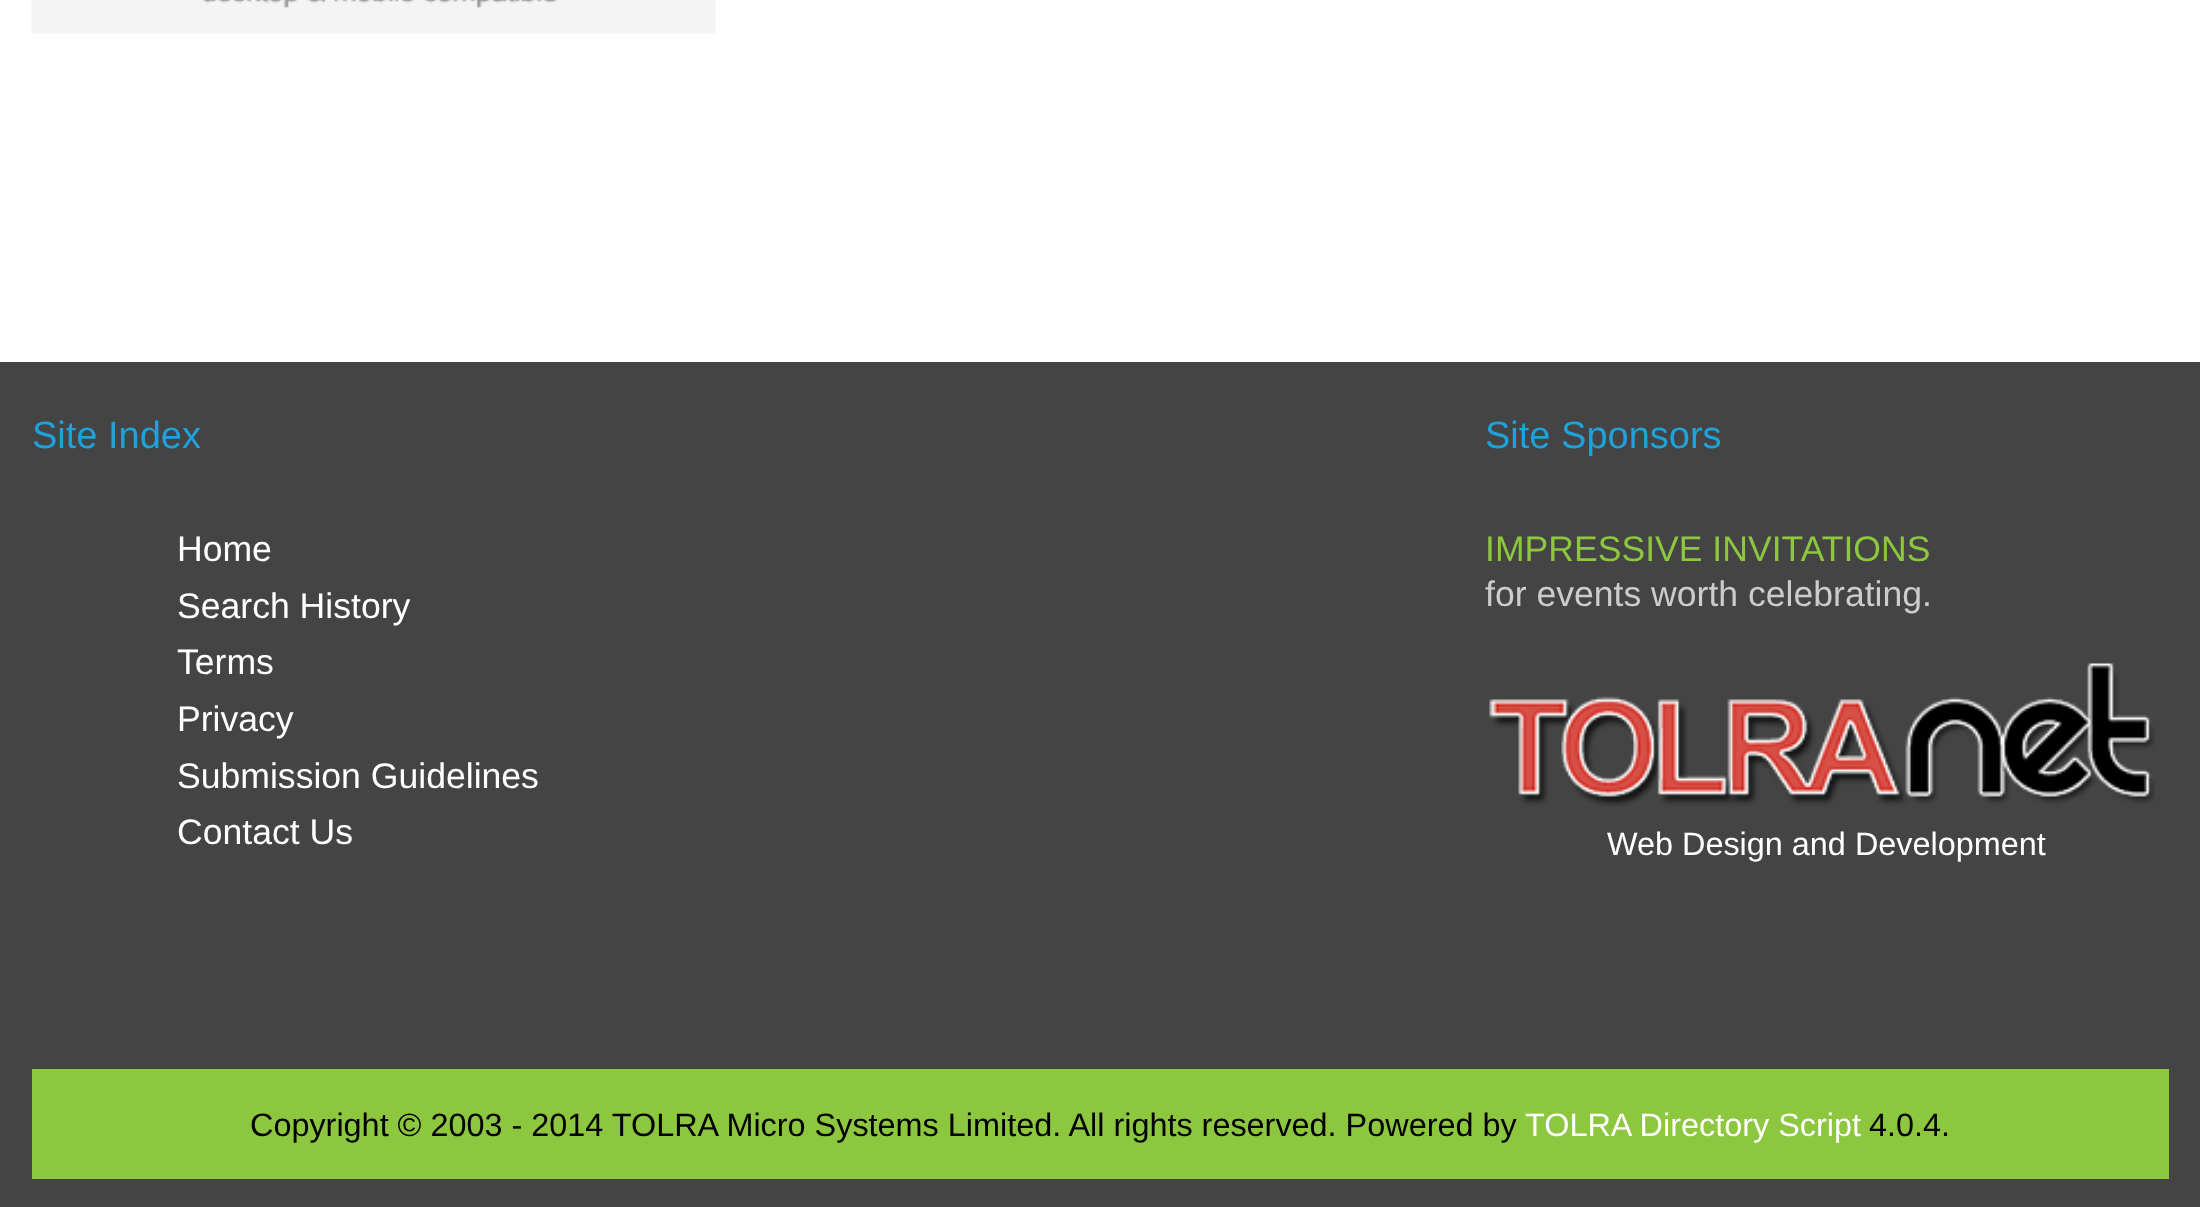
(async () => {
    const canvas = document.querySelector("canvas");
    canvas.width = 2200;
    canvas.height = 1207;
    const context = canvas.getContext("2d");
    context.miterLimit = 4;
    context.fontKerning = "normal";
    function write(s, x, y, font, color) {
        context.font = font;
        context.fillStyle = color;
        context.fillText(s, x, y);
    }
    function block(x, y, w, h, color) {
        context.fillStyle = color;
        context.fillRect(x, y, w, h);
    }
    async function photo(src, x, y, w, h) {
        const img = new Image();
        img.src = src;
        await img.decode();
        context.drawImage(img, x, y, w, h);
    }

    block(0, 0, 2200, 1207, "rgb(68, 68, 68)");
    block(0, 0, 2200, 362, "rgb(255, 255, 255)");
    await photo("media/1.png", 31, 0, 685, 34);
    write("Site Index", 32, 448, "38px Liberation Sans", "rgb(31, 161, 219)");
    write("Home", 177, 561, "35.6px Liberation Sans", "rgb(255, 255, 255)");
    write("Search History", 177, 618, "35.6px Liberation Sans", "rgb(255, 255, 255)");
    write("Terms", 177, 674, "35.6px Liberation Sans", "rgb(255, 255, 255)");
    write("Privacy", 177, 731, "35.6px Liberation Sans", "rgb(255, 255, 255)");
    write("Submission Guidelines", 177, 788, "35.6px Liberation Sans", "rgb(255, 255, 255)");
    write("Contact Us", 177, 844, "35.6px Liberation Sans", "rgb(255, 255, 255)");
    write("Site Sponsors", 1485, 448, "38px Liberation Sans", "rgb(31, 161, 219)");
    write("IMPRESSIVE INVITATIONS", 1485, 561, "35.6px Liberation Sans", "rgb(141, 198, 63)");
    write("for events worth celebrating.", 1485, 606, "35.6px Liberation Sans", "rgb(204, 204, 204)");
    await photo("media/2.png", 1489, 663, 666, 143);
    write("Web Design and Development", 1607, 855, "32.4px Liberation Sans", "rgb(255, 255, 255)");
    block(32, 1069, 2137, 110, "rgb(141, 198, 63)");
    write("Copyright © 2003 - 2014 TOLRA Micro Systems Limited. All rights reserved. Powered by", 250, 1136, "32.4px Liberation Sans", "rgb(0, 0, 0)");
    write("TOLRA Directory Script", 1525, 1136, "32.4px Liberation Sans", "rgb(255, 255, 255)");
    write("4.0.4.", 1869, 1136, "32.4px Liberation Sans", "rgb(0, 0, 0)");
})();
